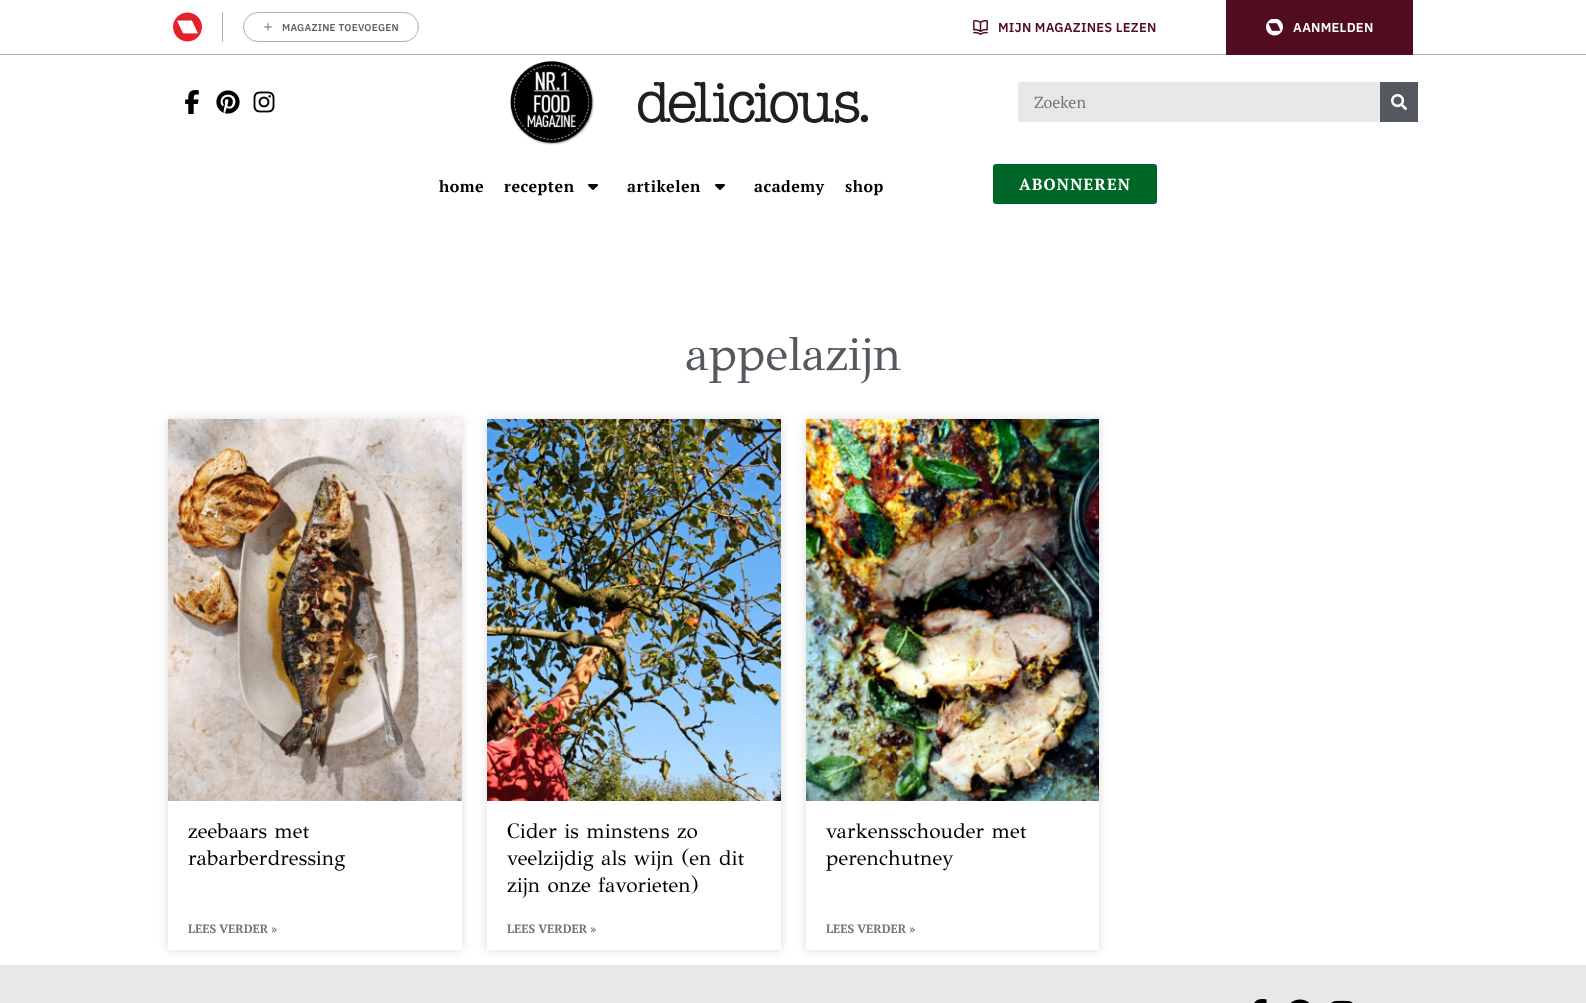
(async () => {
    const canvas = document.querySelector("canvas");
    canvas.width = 1586;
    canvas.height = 1003;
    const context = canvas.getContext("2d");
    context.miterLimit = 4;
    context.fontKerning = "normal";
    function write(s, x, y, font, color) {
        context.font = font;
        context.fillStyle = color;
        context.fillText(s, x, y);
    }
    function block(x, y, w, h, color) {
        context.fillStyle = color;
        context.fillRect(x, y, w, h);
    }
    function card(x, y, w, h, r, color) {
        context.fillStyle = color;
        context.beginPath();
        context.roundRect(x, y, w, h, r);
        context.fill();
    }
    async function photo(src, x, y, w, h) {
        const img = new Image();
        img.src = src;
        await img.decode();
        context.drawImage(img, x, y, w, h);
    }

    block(0, 0, 1586, 1003, "rgb(255, 255, 255)");
    block(0, 54, 1586, 1, "rgb(178, 178, 178)");
    block(222, 12, 1, 30, "rgb(178, 177, 177)");
    await photo("media/1.png", 173, 12, 29, 30);
    context.beginPath();
    context.roundRect(243.5, 12.5, 175, 29, 14.5);
    context.strokeStyle = "rgb(178, 177, 177)";
    context.stroke();
    await photo("media/2.png", 264, 23, 8, 8);
    context.letterSpacing = "0.25px";
    write("MAGAZINE TOEVOEGEN", 282, 31, "600 10px IBM Plex Sans", "rgb(100, 99, 99)");
    await photo("media/3.png", 973, 20, 15, 15);
    write("MIJN MAGAZINES LEZEN", 998, 32, "600 13px IBM Plex Sans", "rgb(82, 12, 32)");
    block(1226, 0, 187, 55, "rgb(82, 12, 32)");
    await photo("media/4.png", 1266, 19, 17, 17);
    write("AANMELDEN", 1293, 32, "600 13px IBM Plex Sans", "rgb(255, 255, 255)");
    await photo("media/5.png", 185, 90, 14, 24);
    await photo("media/6.png", 216, 90, 24, 24);
    await photo("media/7.png", 253, 91, 22, 22);
    await photo("media/8.png", 510, 61, 84, 84);
    await photo("media/9.png", 638, 81, 230, 43);
    card(1018, 82, 362, 40, 3, "rgb(232, 232, 232)");
    context.letterSpacing = "0px";
    write("Zoeken", 1034, 108, "16px PT Serif", "rgb(117, 117, 117)");
    block(1380, 82, 38, 40, "rgb(84, 89, 95)");
    await photo("media/10.png", 1391, 94, 16, 16);
    context.letterSpacing = "0.5px";
    write("home", 439, 192, "bold 16px PT Serif", "rgb(0, 0, 0)");
    write("recepten", 504, 192, "bold 16px PT Serif", "rgb(0, 0, 0)");
    await photo("media/11.png", 588, 184, 10, 6);
    write("artikelen", 627, 192, "bold 16px PT Serif", "rgb(0, 0, 0)");
    await photo("media/11.png", 715, 184, 10, 6);
    write("academy", 754, 192, "bold 16px PT Serif", "rgb(0, 0, 0)");
    write("shop", 845, 192, "bold 16px PT Serif", "rgb(0, 0, 0)");
    context.fillStyle = "rgb(0, 102, 39)";
    context.beginPath();
    context.roundRect(994, 165, 162, 38, 2);
    context.fill();
    context.strokeStyle = "rgb(0, 102, 39)";
    context.lineWidth = 2;
    context.stroke();
    context.letterSpacing = "1.25px";
    write("ABONNEREN", 1019, 190, "bold 16px PT Serif", "rgb(255, 255, 255)");
    context.letterSpacing = "0px";
    write("appelazijn", 685, 370, "48px GFS Didot", "rgb(84, 89, 95)");
    block(0, 965, 1586, 38, "rgb(232, 232, 232)");
    context.save();
    context.beginPath();
    context.moveTo(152, 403);
    context.lineTo(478, 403);
    context.lineTo(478, 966);
    context.lineTo(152, 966);
    context.closePath();
    context.moveTo(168, 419);
    context.lineTo(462, 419);
    context.lineTo(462, 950);
    context.lineTo(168, 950);
    context.closePath();
    context.clip("evenodd");
    context.fillStyle = "rgba(0, 0, 0, 0.15)";
    context.filter = "blur(5px)";
    context.beginPath();
    context.rect(168, 419, 294, 531);
    context.fill();
    context.filter = "none";
    context.restore();
    await photo("media/12.png", 168, 419, 294, 382);
    write("zeebaars met", 188, 838, "21px GFS Didot", "rgb(0, 0, 0)");
    write("rabarberdressing", 188, 865, "21px GFS Didot", "rgb(0, 0, 0)");
    write("LEES VERDER »", 188, 933, "bold 12px PT Serif", "rgb(117, 117, 117)");
    context.save();
    context.beginPath();
    context.moveTo(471, 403);
    context.lineTo(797, 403);
    context.lineTo(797, 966);
    context.lineTo(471, 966);
    context.closePath();
    context.moveTo(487, 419);
    context.lineTo(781, 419);
    context.lineTo(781, 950);
    context.lineTo(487, 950);
    context.closePath();
    context.clip("evenodd");
    context.fillStyle = "rgba(0, 0, 0, 0.15)";
    context.filter = "blur(5px)";
    context.beginPath();
    context.rect(487, 419, 294, 531);
    context.fill();
    context.filter = "none";
    context.restore();
    await photo("media/13.png", 487, 419, 294, 382);
    write("Cider is minstens zo", 507, 838, "21px GFS Didot", "rgb(0, 0, 0)");
    write("veelzijdig als wijn (en dit", 507, 865, "21px GFS Didot", "rgb(0, 0, 0)");
    write("zijn onze favorieten)", 507, 892, "21px GFS Didot", "rgb(0, 0, 0)");
    write("LEES VERDER »", 507, 933, "bold 12px PT Serif", "rgb(117, 117, 117)");
    context.save();
    context.beginPath();
    context.moveTo(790, 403);
    context.lineTo(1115, 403);
    context.lineTo(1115, 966);
    context.lineTo(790, 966);
    context.closePath();
    context.moveTo(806, 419);
    context.lineTo(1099, 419);
    context.lineTo(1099, 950);
    context.lineTo(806, 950);
    context.closePath();
    context.clip("evenodd");
    context.fillStyle = "rgba(0, 0, 0, 0.15)";
    context.filter = "blur(5px)";
    context.beginPath();
    context.rect(806, 419, 293, 531);
    context.fill();
    context.filter = "none";
    context.restore();
    await photo("media/14.png", 806, 419, 293, 382);
    write("varkensschouder met", 826, 838, "21px GFS Didot", "rgb(0, 0, 0)");
    write("perenchutney", 826, 865, "21px GFS Didot", "rgb(0, 0, 0)");
    write("LEES VERDER »", 826, 933, "bold 12px PT Serif", "rgb(117, 117, 117)");
    await photo("media/15.png", 1254, 999, 13, 4);
    await photo("media/16.png", 1290, 999, 20, 4);
    await photo("media/17.png", 1331, 1000, 22, 3);
})();
